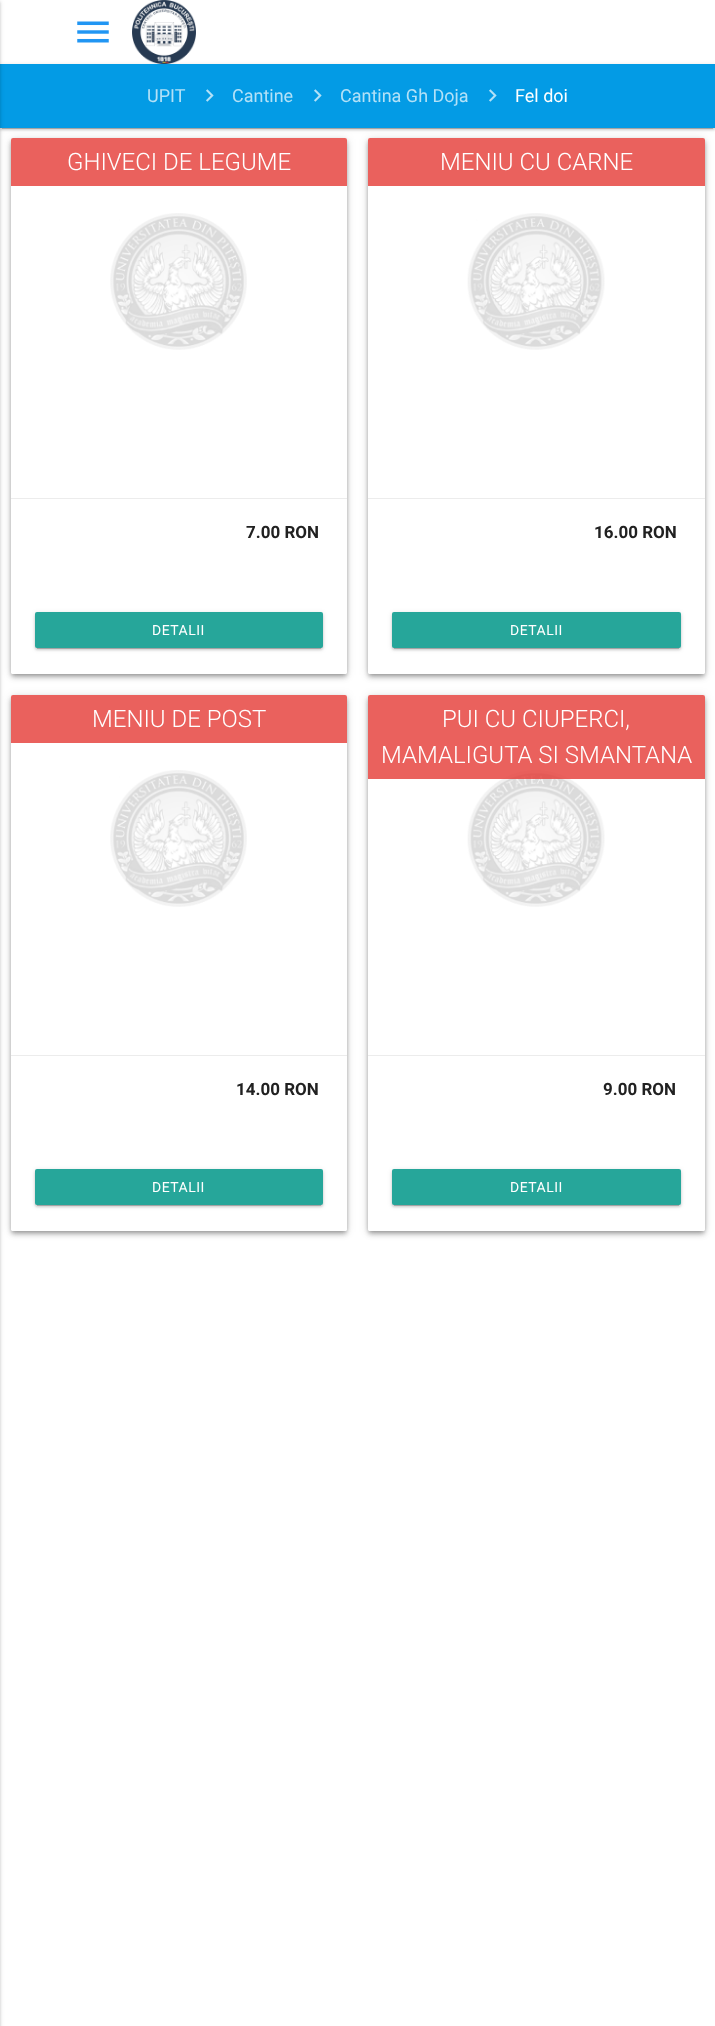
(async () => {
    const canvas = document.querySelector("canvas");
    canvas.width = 715;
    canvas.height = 2026;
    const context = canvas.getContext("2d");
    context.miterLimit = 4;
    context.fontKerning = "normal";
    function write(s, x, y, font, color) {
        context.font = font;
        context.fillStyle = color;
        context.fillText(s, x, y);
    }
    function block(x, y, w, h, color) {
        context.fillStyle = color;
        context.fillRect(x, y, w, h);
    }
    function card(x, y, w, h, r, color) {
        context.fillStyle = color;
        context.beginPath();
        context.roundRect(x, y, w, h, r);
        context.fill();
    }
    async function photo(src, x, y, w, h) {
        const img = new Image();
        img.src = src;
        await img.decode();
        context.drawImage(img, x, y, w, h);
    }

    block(0, 0, 715, 2026, "rgb(255, 255, 255)");
    context.fillStyle = "rgba(0, 0, 0, 0.2)";
    context.filter = "blur(0.5px)";
    context.beginPath();
    context.rect(2, 69, 711, 60);
    context.fill();
    context.filter = "none";
    context.fillStyle = "rgba(0, 0, 0, 0.12)";
    context.filter = "blur(2.5px)";
    context.beginPath();
    context.rect(0, 65, 715, 64);
    context.fill();
    context.filter = "none";
    context.fillStyle = "rgba(0, 0, 0, 0.14)";
    context.filter = "blur(1px)";
    context.beginPath();
    context.rect(0, 66, 715, 64);
    context.fill();
    context.filter = "none";
    block(0, 64, 715, 64, "rgb(3, 155, 229)");
    context.fillStyle = "rgba(0, 0, 0, 0.12)";
    context.filter = "blur(2.5px)";
    context.beginPath();
    context.rect(-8, 1, 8, 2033);
    context.fill();
    context.filter = "none";
    context.fillStyle = "rgba(0, 0, 0, 0.14)";
    context.filter = "blur(1px)";
    context.beginPath();
    context.rect(-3, 2, 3, 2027);
    context.fill();
    context.filter = "none";
    await photo("media/1.png", 77, 21, 32, 22);
    await photo("media/2.png", 132, 0, 64, 64);
    write("UPIT", 147, 102, "18px Roboto", "rgb(179, 225, 247)");
    await photo("media/3.png", 206, 89, 8, 13);
    write("Cantine", 232, 102, "18px Roboto", "rgb(179, 225, 247)");
    await photo("media/3.png", 314, 89, 8, 13);
    write("Cantina Gh Doja", 340, 102, "18px Roboto", "rgb(179, 225, 247)");
    await photo("media/3.png", 489, 89, 8, 13);
    write("Fel doi", 515, 102, "18px Roboto", "rgb(255, 255, 255)");
    context.fillStyle = "rgba(0, 0, 0, 0.3)";
    context.filter = "blur(2px)";
    context.beginPath();
    context.roundRect(12, 141, 334, 534, 1);
    context.fill();
    context.filter = "none";
    context.fillStyle = "rgba(0, 0, 0, 0.12)";
    context.filter = "blur(5px)";
    context.beginPath();
    context.roundRect(11, 139, 336, 536, 2);
    context.fill();
    context.filter = "none";
    context.fillStyle = "rgba(0, 0, 0, 0.14)";
    context.filter = "blur(2.5px)";
    context.beginPath();
    context.roundRect(11, 142, 336, 536, 2);
    context.fill();
    context.filter = "none";
    card(11, 138, 336, 536, 2, "rgb(255, 255, 255)");
    context.fillStyle = "rgb(234, 97, 93)";
    context.beginPath();
    context.roundRect(11, 138, 336, 48, [2, 2, 0, 0]);
    context.fill();
    write("GHIVECI DE LEGUME", 67, 170, "300 24px Roboto", "rgb(255, 255, 255)");
    await photo("media/4.png", 110, 213, 137, 137);
    context.beginPath();
    context.roundRect(11, 498, 336, 176, [0, 0, 2, 2]);
    context.fill();
    block(11, 498, 336, 1, "rgb(236, 236, 236)");
    write("7.00 RON", 246, 538, "bold 17px Roboto", "rgb(33, 33, 33)");
    context.fillStyle = "rgba(0, 0, 0, 0.2)";
    context.filter = "blur(0.5px)";
    context.beginPath();
    context.rect(37, 617, 284, 32);
    context.fill();
    context.filter = "none";
    context.fillStyle = "rgba(0, 0, 0, 0.12)";
    context.filter = "blur(2.5px)";
    context.beginPath();
    context.roundRect(35, 613, 288, 36, 2);
    context.fill();
    context.filter = "none";
    context.fillStyle = "rgba(0, 0, 0, 0.14)";
    context.filter = "blur(1px)";
    context.beginPath();
    context.roundRect(35, 614, 288, 36, 2);
    context.fill();
    context.filter = "none";
    card(35, 612, 288, 36, 2, "rgb(38, 166, 154)");
    context.letterSpacing = "0.5px";
    write("DETALII", 152, 635, "14px Roboto", "rgb(255, 255, 255)");
    context.fillStyle = "rgba(0, 0, 0, 0.3)";
    context.filter = "blur(2px)";
    context.beginPath();
    context.roundRect(369, 141, 335, 534, 1);
    context.fill();
    context.filter = "none";
    context.fillStyle = "rgba(0, 0, 0, 0.12)";
    context.filter = "blur(5px)";
    context.beginPath();
    context.roundRect(368, 139, 337, 536, 2);
    context.fill();
    context.filter = "none";
    context.fillStyle = "rgba(0, 0, 0, 0.14)";
    context.filter = "blur(2.5px)";
    context.beginPath();
    context.roundRect(368, 142, 337, 536, 2);
    context.fill();
    context.filter = "none";
    card(368, 138, 337, 536, 2, "rgb(255, 255, 255)");
    context.fillStyle = "rgb(234, 97, 93)";
    context.beginPath();
    context.roundRect(368, 138, 337, 48, [2, 2, 0, 0]);
    context.fill();
    context.letterSpacing = "0px";
    write("MENIU CU CARNE", 440, 170, "300 24px Roboto", "rgb(255, 255, 255)");
    await photo("media/5.png", 467, 213, 138, 137);
    context.beginPath();
    context.roundRect(368, 498, 337, 176, [0, 0, 2, 2]);
    context.fill();
    block(368, 498, 337, 1, "rgb(236, 236, 236)");
    write("16.00 RON", 594, 538, "bold 17px Roboto", "rgb(33, 33, 33)");
    context.fillStyle = "rgba(0, 0, 0, 0.2)";
    context.filter = "blur(0.5px)";
    context.beginPath();
    context.rect(394, 617, 285, 32);
    context.fill();
    context.filter = "none";
    context.fillStyle = "rgba(0, 0, 0, 0.12)";
    context.filter = "blur(2.5px)";
    context.beginPath();
    context.roundRect(392, 613, 289, 36, 2);
    context.fill();
    context.filter = "none";
    context.fillStyle = "rgba(0, 0, 0, 0.14)";
    context.filter = "blur(1px)";
    context.beginPath();
    context.roundRect(392, 614, 289, 36, 2);
    context.fill();
    context.filter = "none";
    card(392, 612, 289, 36, 2, "rgb(38, 166, 154)");
    context.letterSpacing = "0.5px";
    write("DETALII", 510, 635, "14px Roboto", "rgb(255, 255, 255)");
    context.fillStyle = "rgba(0, 0, 0, 0.3)";
    context.filter = "blur(2px)";
    context.beginPath();
    context.roundRect(12, 698, 334, 534, 1);
    context.fill();
    context.filter = "none";
    context.fillStyle = "rgba(0, 0, 0, 0.12)";
    context.filter = "blur(5px)";
    context.beginPath();
    context.roundRect(11, 696, 336, 536, 2);
    context.fill();
    context.filter = "none";
    context.fillStyle = "rgba(0, 0, 0, 0.14)";
    context.filter = "blur(2.5px)";
    context.beginPath();
    context.roundRect(11, 699, 336, 536, 2);
    context.fill();
    context.filter = "none";
    card(11, 695, 336, 536, 2, "rgb(255, 255, 255)");
    context.fillStyle = "rgb(234, 97, 93)";
    context.beginPath();
    context.roundRect(11, 695, 336, 48, [2, 2, 0, 0]);
    context.fill();
    context.letterSpacing = "0px";
    write("MENIU DE POST", 92, 727, "300 24px Roboto", "rgb(255, 255, 255)");
    await photo("media/4.png", 110, 770, 137, 137);
    context.beginPath();
    context.roundRect(11, 1055, 336, 176, [0, 0, 2, 2]);
    context.fill();
    block(11, 1055, 336, 1, "rgb(236, 236, 236)");
    write("14.00 RON", 236, 1095, "bold 17px Roboto", "rgb(33, 33, 33)");
    context.fillStyle = "rgba(0, 0, 0, 0.2)";
    context.filter = "blur(0.5px)";
    context.beginPath();
    context.rect(37, 1174, 284, 32);
    context.fill();
    context.filter = "none";
    context.fillStyle = "rgba(0, 0, 0, 0.12)";
    context.filter = "blur(2.5px)";
    context.beginPath();
    context.roundRect(35, 1170, 288, 36, 2);
    context.fill();
    context.filter = "none";
    context.fillStyle = "rgba(0, 0, 0, 0.14)";
    context.filter = "blur(1px)";
    context.beginPath();
    context.roundRect(35, 1171, 288, 36, 2);
    context.fill();
    context.filter = "none";
    card(35, 1169, 288, 36, 2, "rgb(38, 166, 154)");
    context.letterSpacing = "0.5px";
    write("DETALII", 152, 1192, "14px Roboto", "rgb(255, 255, 255)");
    context.fillStyle = "rgba(0, 0, 0, 0.3)";
    context.filter = "blur(2px)";
    context.beginPath();
    context.roundRect(369, 698, 335, 534, 1);
    context.fill();
    context.filter = "none";
    context.fillStyle = "rgba(0, 0, 0, 0.12)";
    context.filter = "blur(5px)";
    context.beginPath();
    context.roundRect(368, 696, 337, 536, 2);
    context.fill();
    context.filter = "none";
    context.fillStyle = "rgba(0, 0, 0, 0.14)";
    context.filter = "blur(2.5px)";
    context.beginPath();
    context.roundRect(368, 699, 337, 536, 2);
    context.fill();
    context.filter = "none";
    card(368, 695, 337, 536, 2, "rgb(255, 255, 255)");
    await photo("media/5.png", 467, 770, 138, 137);
    context.fillStyle = "rgba(229, 57, 53, 0.8)";
    context.beginPath();
    context.roundRect(368, 695, 337, 84, [2, 2, 0, 0]);
    context.fill();
    context.letterSpacing = "0px";
    write("PUI CU CIUPERCI,", 442, 727, "300 24px Roboto", "rgb(255, 255, 255)");
    write("MAMALIGUTA SI SMANTANA", 381, 763, "300 24px Roboto", "rgb(255, 255, 255)");
    context.beginPath();
    context.roundRect(368, 1055, 337, 176, [0, 0, 2, 2]);
    context.fill();
    block(368, 1055, 337, 1, "rgb(236, 236, 236)");
    write("9.00 RON", 603, 1095, "bold 17px Roboto", "rgb(33, 33, 33)");
    context.fillStyle = "rgba(0, 0, 0, 0.2)";
    context.filter = "blur(0.5px)";
    context.beginPath();
    context.rect(394, 1174, 285, 32);
    context.fill();
    context.filter = "none";
    context.fillStyle = "rgba(0, 0, 0, 0.12)";
    context.filter = "blur(2.5px)";
    context.beginPath();
    context.roundRect(392, 1170, 289, 36, 2);
    context.fill();
    context.filter = "none";
    context.fillStyle = "rgba(0, 0, 0, 0.14)";
    context.filter = "blur(1px)";
    context.beginPath();
    context.roundRect(392, 1171, 289, 36, 2);
    context.fill();
    context.filter = "none";
    card(392, 1169, 289, 36, 2, "rgb(38, 166, 154)");
    context.letterSpacing = "0.5px";
    write("DETALII", 510, 1192, "14px Roboto", "rgb(255, 255, 255)");
})();
